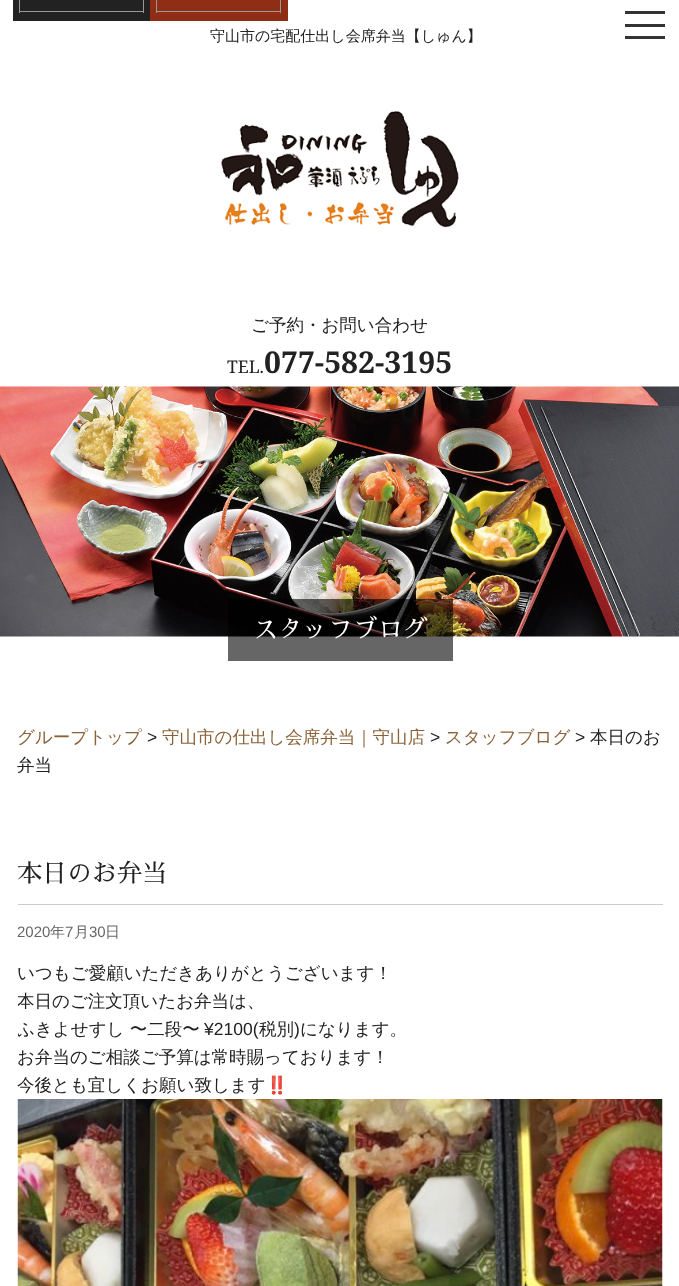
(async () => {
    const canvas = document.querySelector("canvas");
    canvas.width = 679;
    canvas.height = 1286;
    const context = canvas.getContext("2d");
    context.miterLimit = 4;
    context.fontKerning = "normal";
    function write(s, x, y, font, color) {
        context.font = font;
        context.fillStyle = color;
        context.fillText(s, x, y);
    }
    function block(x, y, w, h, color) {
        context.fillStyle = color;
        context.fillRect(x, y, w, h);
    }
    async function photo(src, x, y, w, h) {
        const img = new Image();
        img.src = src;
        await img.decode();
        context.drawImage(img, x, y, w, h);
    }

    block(0, 0, 679, 1286, "rgb(255, 255, 255)");
    block(13, 0, 137, 21, "rgb(34, 34, 34)");
    block(143, 0, 1, 13, "rgb(153, 153, 153)");
    block(19, 11, 125, 1, "rgb(153, 153, 153)");
    block(19, 0, 1, 13, "rgb(153, 153, 153)");
    block(150, 0, 138, 21, "rgb(143, 46, 20)");
    block(280, 0, 1, 13, "rgb(153, 153, 153)");
    block(156, 11, 125, 1, "rgb(153, 153, 153)");
    block(156, 0, 1, 13, "rgb(153, 153, 153)");
    write("守山市の宅配仕出し会席弁当【しゅん】", 210, 41, "500 15px WenQuanYi Zen Hei", "rgb(34, 34, 34)");
    await photo("media/1.png", 221, 111, 238, 117);
    block(625, 24, 40, 3, "rgb(51, 51, 51)");
    block(625, 11, 40, 3, "rgb(51, 51, 51)");
    block(625, 36, 40, 3, "rgb(51, 51, 51)");
    write("ご予約・お問い合わせ", 251, 331, "500 17.5px WenQuanYi Zen Hei", "rgb(34, 34, 34)");
    write("TEL.", 227, 373, "17.5px Noto Serif", "rgb(34, 34, 34)");
    write("077-582-3195", 264, 373, "bold 30px Noto Serif", "rgb(34, 34, 34)");
    await photo("media/2.png", 0, 386, 679, 251);
    block(228, 599, 225, 62, "rgba(0, 0, 0, 0.6)");
    write("スタッフブログ", 253, 638, "25px Sawarabi Mincho", "rgb(255, 255, 255)");
    write("グループトップ", 17, 743, "500 17.5px WenQuanYi Zen Hei", "rgb(138, 98, 57)");
    write(">", 147, 743, "17.5px Liberation Sans", "rgb(34, 34, 34)");
    write("守山市の仕出し会席弁当｜守山店", 162, 743, "500 17.5px WenQuanYi Zen Hei", "rgb(138, 98, 57)");
    write(">", 430, 743, "17.5px Liberation Sans", "rgb(34, 34, 34)");
    write("スタッフブログ", 445, 743, "500 17.5px WenQuanYi Zen Hei", "rgb(138, 98, 57)");
    write(">", 575, 743, "17.5px Liberation Sans", "rgb(34, 34, 34)");
    write("本日のお", 590, 743, "500 17.5px WenQuanYi Zen Hei", "rgb(34, 34, 34)");
    write("弁当", 17, 771, "500 17.5px WenQuanYi Zen Hei", "rgb(34, 34, 34)");
    block(18, 904, 645, 1, "rgb(204, 204, 204)");
    write("本日のお弁当", 17, 882, "25px Sawarabi Mincho", "rgb(34, 34, 34)");
    write("2020", 17, 937, "15px Liberation Sans", "rgb(102, 102, 102)");
    write("年", 50, 937, "500 15px WenQuanYi Zen Hei", "rgb(102, 102, 102)");
    write("7", 65, 937, "15px Liberation Sans", "rgb(102, 102, 102)");
    write("月", 74, 937, "500 15px WenQuanYi Zen Hei", "rgb(102, 102, 102)");
    write("30", 89, 937, "15px Liberation Sans", "rgb(102, 102, 102)");
    write("日", 105, 937, "500 15px WenQuanYi Zen Hei", "rgb(102, 102, 102)");
    write("いつもご愛顧いただきありがとうございます！", 17, 979, "500 17.5px WenQuanYi Zen Hei", "rgb(34, 34, 34)");
    context.save();
    context.beginPath();
    context.rect(18, 959, 645, 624);
    context.clip();
    write("本日のご注文頂いたお弁当は、", 17, 1007, "500 17.5px WenQuanYi Zen Hei", "rgb(34, 34, 34)");
    write("ふきよせすし 〜二段〜", 17, 1035, "500 17.5px WenQuanYi Zen Hei", "rgb(34, 34, 34)");
    context.restore();
    write("¥2100(", 204, 1035, "17.5px Liberation Sans", "rgb(34, 34, 34)");
    write("税別", 259, 1035, "500 17.5px WenQuanYi Zen Hei", "rgb(34, 34, 34)");
    write(")", 294, 1035, "17.5px Liberation Sans", "rgb(34, 34, 34)");
    write("になります。", 300, 1035, "500 17.5px WenQuanYi Zen Hei", "rgb(34, 34, 34)");
    write("お弁当のご相談ご予算は常時賜っております！", 17, 1063, "500 17.5px WenQuanYi Zen Hei", "rgb(34, 34, 34)");
    write("今後とも宜しくお願い致します", 17, 1091, "500 17.5px WenQuanYi Zen Hei", "rgb(34, 34, 34)");
    write("‼️", 266, 1091, "17.5px Noto Color Emoji", "rgb(34, 34, 34)");
    await photo("media/3.png", 17, 1099, 646, 187);
})();
